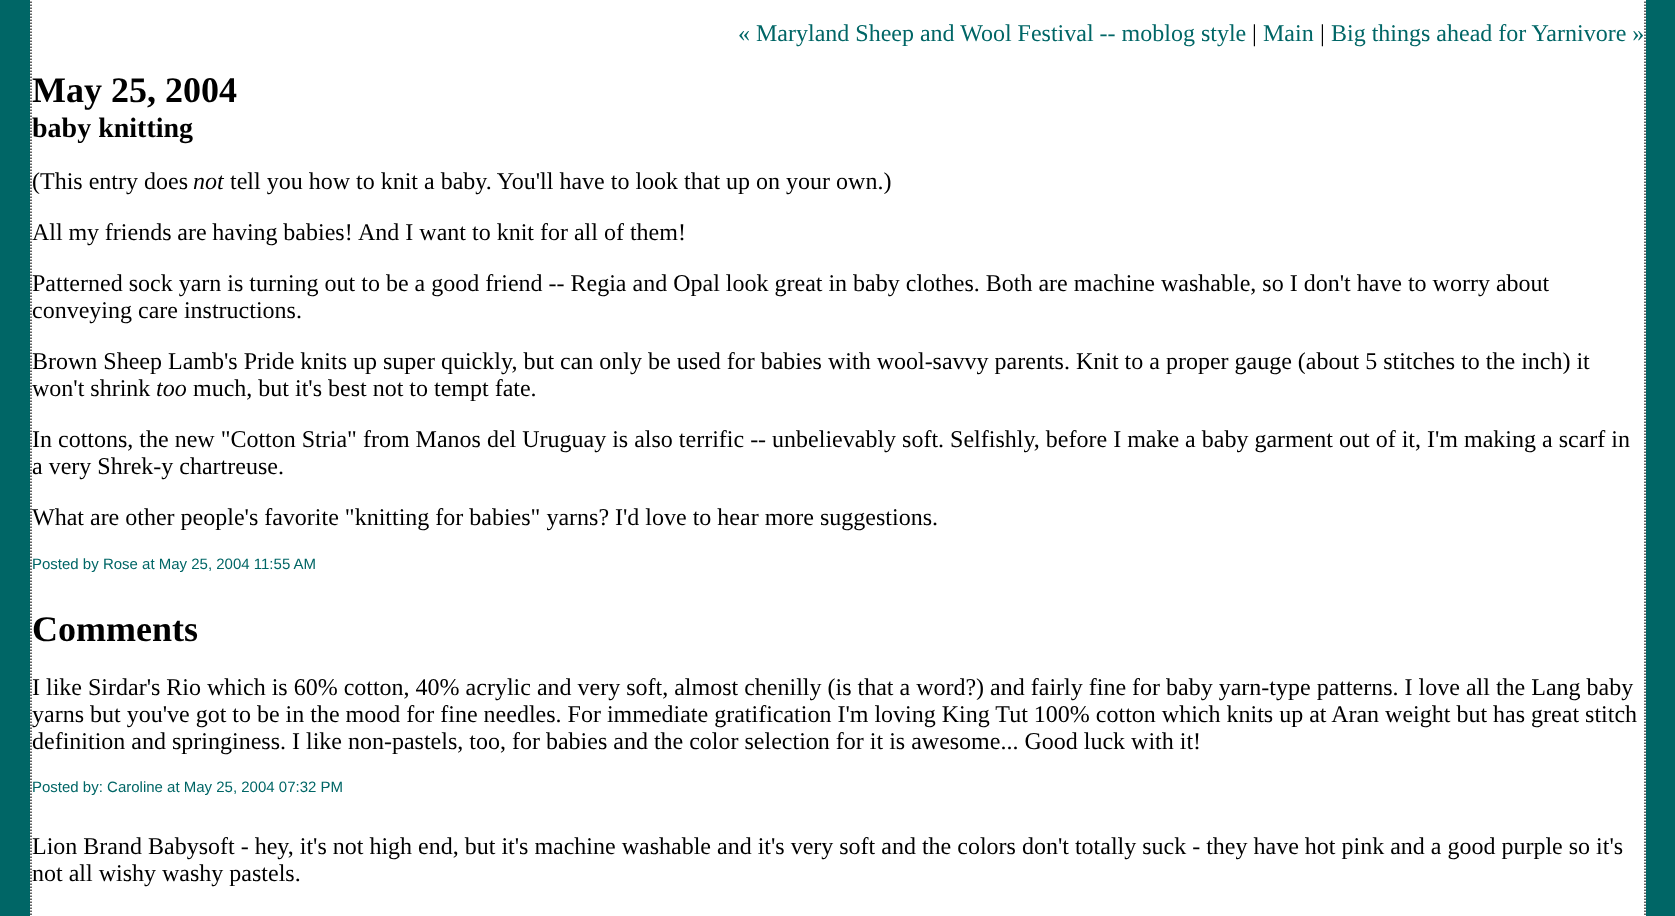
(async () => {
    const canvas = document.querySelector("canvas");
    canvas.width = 1675;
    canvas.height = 916;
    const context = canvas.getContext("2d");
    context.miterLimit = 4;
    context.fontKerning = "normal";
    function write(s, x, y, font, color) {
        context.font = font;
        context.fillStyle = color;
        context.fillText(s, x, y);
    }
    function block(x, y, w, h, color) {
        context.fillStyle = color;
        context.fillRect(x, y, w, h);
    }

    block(0, 0, 1675, 916, "rgb(0, 102, 102)");
    block(30, 0, 1616, 916, "rgb(255, 255, 255)");
    context.beginPath();
    context.moveTo(1645, -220.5);
    context.lineTo(1645, 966);
    context.strokeStyle = "rgb(51, 51, 51)";
    context.lineWidth = 1.5;
    context.setLineDash([1.5, 1.5]);
    context.stroke();
    context.beginPath();
    context.moveTo(31, -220.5);
    context.lineTo(31, 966);
    context.stroke();
    write("« Maryland Sheep and Wool Festival -- moblog style", 738, 41, "24px Liberation Serif", "rgb(0, 102, 102)");
    write("|", 1252, 41, "24px Liberation Serif", "rgb(0, 0, 0)");
    write("Main", 1263, 41, "24px Liberation Serif", "rgb(0, 102, 102)");
    write("|", 1320, 41, "24px Liberation Serif", "rgb(0, 0, 0)");
    write("Big things ahead for Yarnivore »", 1331, 41, "24px Liberation Serif", "rgb(0, 102, 102)");
    write("May 25, 2004", 32, 102, "bold 36px Liberation Serif", "rgb(0, 0, 0)");
    write("baby knitting", 32, 137, "bold 28px Liberation Serif", "rgb(0, 0, 0)");
    write("(This entry does", 32, 189, "24px Liberation Serif", "rgb(0, 0, 0)");
    write("not", 193, 189, "italic 24px Liberation Serif", "rgb(0, 0, 0)");
    write("tell you how to knit a baby. You'll have to look that up on your own.)", 230, 189, "24px Liberation Serif", "rgb(0, 0, 0)");
    context.wordSpacing = "-0.25px";
    write("All my friends are having babies!", 32, 240, "24px Liberation Serif", "rgb(0, 0, 0)");
    context.wordSpacing = "0px";
    write("And I want to knit for all of them!", 358, 240, "24px Liberation Serif", "rgb(0, 0, 0)");
    write("Patterned sock yarn is turning out to be a good friend -- Regia and Opal look great in baby clothes. Both are machine washable, so I don't have to worry about", 32, 291, "24px Liberation Serif", "rgb(0, 0, 0)");
    write("conveying care instructions.", 32, 318, "24px Liberation Serif", "rgb(0, 0, 0)");
    write("Brown Sheep Lamb's Pride knits up super quickly, but can only be used for babies with wool-savvy parents. Knit to a proper gauge (about 5 stitches to the inch) it", 32, 369, "24px Liberation Serif", "rgb(0, 0, 0)");
    write("won't shrink", 32, 396, "24px Liberation Serif", "rgb(0, 0, 0)");
    write("too", 156, 396, "italic 24px Liberation Serif", "rgb(0, 0, 0)");
    write("much, but it's best not to tempt fate.", 193, 396, "24px Liberation Serif", "rgb(0, 0, 0)");
    write("In cottons, the new \"Cotton Stria\" from Manos del Uruguay is also terrific -- unbelievably soft. Selfishly, before I make a baby garment out of it, I'm making a scarf in", 32, 447, "24px Liberation Serif", "rgb(0, 0, 0)");
    write("a very Shrek-y chartreuse.", 32, 474, "24px Liberation Serif", "rgb(0, 0, 0)");
    write("What are other people's favorite \"knitting for babies\" yarns? I'd love to hear more suggestions.", 32, 525, "24px Liberation Serif", "rgb(0, 0, 0)");
    write("Posted by Rose at May 25, 2004 11:55 AM", 32, 569, "15px Liberation Sans", "rgb(0, 102, 102)");
    write("Comments", 32, 641, "bold 36px Liberation Serif", "rgb(0, 0, 0)");
    write("I like Sirdar's Rio which is 60% cotton, 40% acrylic and very soft, almost chenilly (is that a word?) and fairly fine for baby yarn-type patterns. I love all the Lang baby", 32, 695, "24px Liberation Serif", "rgb(0, 0, 0)");
    write("yarns but you've got to be in the mood for fine needles. For immediate gratification I'm loving King Tut 100% cotton which knits up at Aran weight but has great stitch", 32, 722, "24px Liberation Serif", "rgb(0, 0, 0)");
    write("definition and springiness. I like non-pastels, too, for babies and the color selection for it is awesome... Good luck with it!", 32, 749, "24px Liberation Serif", "rgb(0, 0, 0)");
    write("Posted by: Caroline at May 25, 2004 07:32 PM", 32, 792, "15px Liberation Sans", "rgb(0, 102, 102)");
    write("Lion Brand Babysoft - hey, it's not high end, but it's machine washable and it's very soft and the colors don't totally suck - they have hot pink and a good purple so it's", 32, 854, "24px Liberation Serif", "rgb(0, 0, 0)");
    write("not all wishy washy pastels.", 32, 881, "24px Liberation Serif", "rgb(0, 0, 0)");
})();
